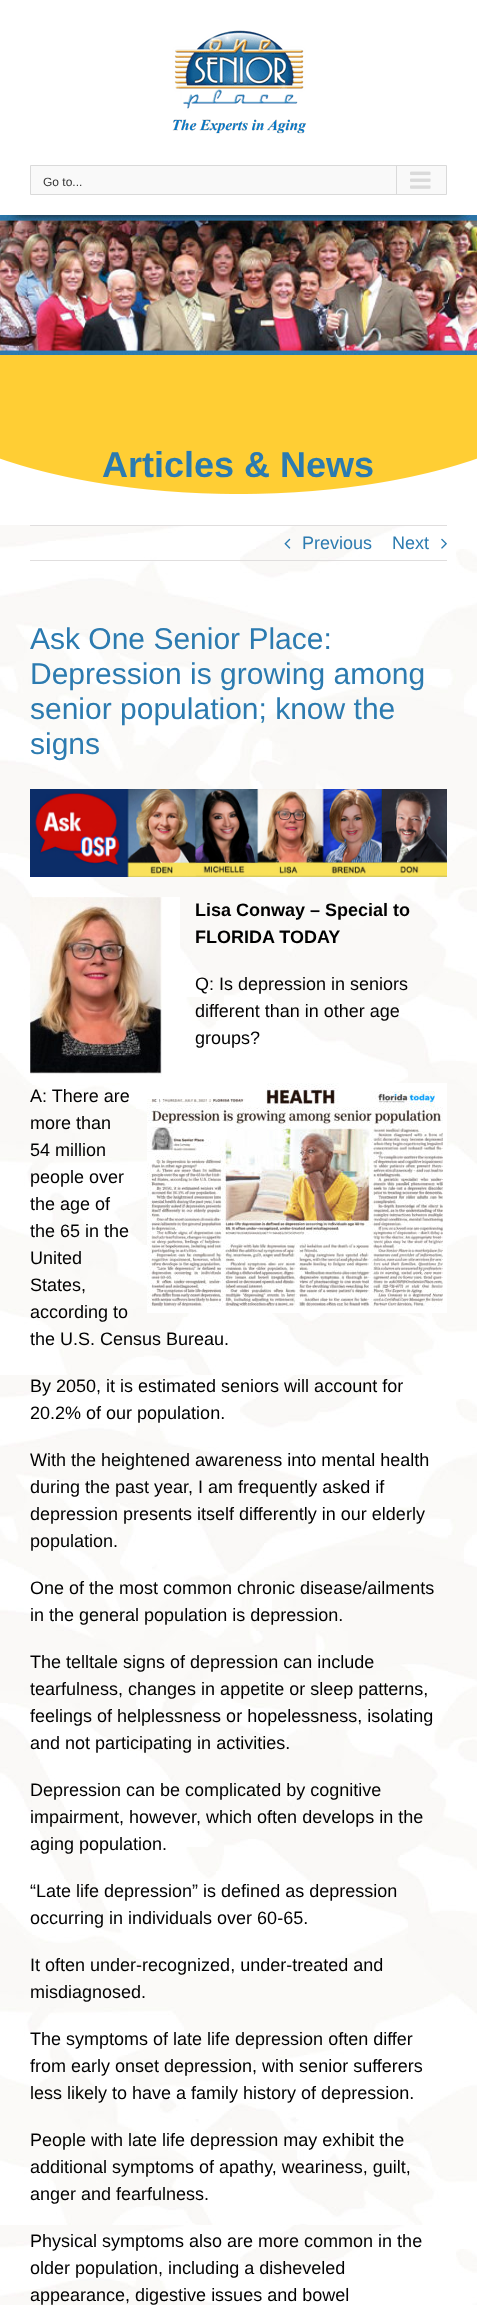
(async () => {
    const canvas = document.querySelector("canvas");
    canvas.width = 477;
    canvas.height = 2305;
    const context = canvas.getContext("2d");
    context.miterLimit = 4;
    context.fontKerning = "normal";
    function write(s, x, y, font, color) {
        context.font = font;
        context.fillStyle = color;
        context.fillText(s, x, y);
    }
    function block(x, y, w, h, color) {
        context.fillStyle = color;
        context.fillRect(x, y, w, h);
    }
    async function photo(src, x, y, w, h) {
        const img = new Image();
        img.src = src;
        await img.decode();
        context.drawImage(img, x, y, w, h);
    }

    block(0, 0, 477, 2305, "rgb(255, 255, 255)");
    await photo("media/3.png", 0, 215, 477, 140);
    context.save();
    context.beginPath();
    context.rect(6, 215, 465, 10);
    context.clip();
    context.fillStyle = "rgb(17, 17, 17)";
    context.filter = "blur(5px)";
    context.beginPath();
    context.rect(15, 30, 447, 185);
    context.fill();
    context.filter = "none";
    context.restore();
    context.save();
    context.beginPath();
    context.rect(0, 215, 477, 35);
    context.clip();
    context.fillStyle = "rgba(0, 0, 0, 0.14)";
    context.filter = "blur(25px)";
    context.beginPath();
    context.rect(2, 12, 473, 211);
    context.fill();
    context.filter = "none";
    context.restore();
    await photo("media/1.png", 172, 30, 135, 104);
    context.fillStyle = "rgb(249, 249, 249)";
    context.beginPath();
    context.rect(30.5, 165.5, 416, 29);
    context.fill();
    context.strokeStyle = "rgb(218, 218, 218)";
    context.stroke();
    write("Go to...", 43, 186, "12px Liberation Sans", "rgb(51, 51, 51)");
    block(396, 166, 1, 28, "rgb(218, 218, 218)");
    await photo("media/2.png", 410, 171, 21, 18);
    await photo("media/4.png", 0, 355, 477, 139);
    write("Articles & News", 102, 477, "bold 36px Liberation Sans", "rgb(44, 123, 176)");
    await photo("media/5.png", 0, 525, 477, 1780);
    block(30, 525, 417, 1, "rgb(224, 222, 222)");
    block(30, 560, 417, 1, "rgb(224, 222, 222)");
    await photo("media/6.png", 284, 538, 7, 11);
    write("Previous", 302, 549, "18px Liberation Sans", "rgb(44, 123, 176)");
    write("Next", 392, 549, "18px Liberation Sans", "rgb(44, 123, 176)");
    await photo("media/7.png", 441, 538, 6, 11);
    write("Ask One Senior Place:", 30, 649, "30px Liberation Sans", "rgb(44, 123, 176)");
    write("Depression is growing among", 30, 684, "30px Liberation Sans", "rgb(44, 123, 176)");
    write("senior population; know the", 30, 719, "30px Liberation Sans", "rgb(44, 123, 176)");
    write("signs", 30, 754, "30px Liberation Sans", "rgb(44, 123, 176)");
    await photo("media/8.png", 30, 789, 417, 88);
    await photo("media/9.png", 30, 897, 150, 186);
    write("Lisa Conway – Special to", 195, 916, "bold 18px Liberation Sans", "rgb(0, 0, 0)");
    write("FLORIDA TODAY", 195, 943, "bold 18px Liberation Sans", "rgb(0, 0, 0)");
    write("Q: Is depression in seniors", 195, 990, "18px Liberation Sans", "rgb(0, 0, 0)");
    write("different than in other age", 195, 1017, "18px Liberation Sans", "rgb(0, 0, 0)");
    write("groups?", 195, 1044, "18px Liberation Sans", "rgb(0, 0, 0)");
    write("A: There are", 30, 1102, "18px Liberation Sans", "rgb(0, 0, 0)");
    await photo("media/10.png", 147, 1083, 300, 230);
    write("more than", 30, 1129, "18px Liberation Sans", "rgb(0, 0, 0)");
    write("54 million", 30, 1156, "18px Liberation Sans", "rgb(0, 0, 0)");
    write("people over", 30, 1183, "18px Liberation Sans", "rgb(0, 0, 0)");
    write("the age of", 30, 1210, "18px Liberation Sans", "rgb(0, 0, 0)");
    write("the 65 in the", 30, 1237, "18px Liberation Sans", "rgb(0, 0, 0)");
    write("United", 30, 1264, "18px Liberation Sans", "rgb(0, 0, 0)");
    write("States,", 30, 1291, "18px Liberation Sans", "rgb(0, 0, 0)");
    write("according to", 30, 1318, "18px Liberation Sans", "rgb(0, 0, 0)");
    write("the U.S. Census Bureau.", 30, 1345, "18px Liberation Sans", "rgb(0, 0, 0)");
    write("By 2050, it is estimated seniors will account for", 30, 1392, "18px Liberation Sans", "rgb(0, 0, 0)");
    write("20.2% of our population.", 30, 1419, "18px Liberation Sans", "rgb(0, 0, 0)");
    write("With the heightened awareness into mental health", 30, 1466, "18px Liberation Sans", "rgb(0, 0, 0)");
    write("during the past year, I am frequently asked if", 30, 1493, "18px Liberation Sans", "rgb(0, 0, 0)");
    write("depression presents itself differently in our elderly", 30, 1520, "18px Liberation Sans", "rgb(0, 0, 0)");
    write("population.", 30, 1547, "18px Liberation Sans", "rgb(0, 0, 0)");
    write("One of the most common chronic disease/ailments", 30, 1594, "18px Liberation Sans", "rgb(0, 0, 0)");
    write("in the general population is depression.", 30, 1621, "18px Liberation Sans", "rgb(0, 0, 0)");
    write("The telltale signs of depression can include", 30, 1668, "18px Liberation Sans", "rgb(0, 0, 0)");
    write("tearfulness, changes in appetite or sleep patterns,", 30, 1695, "18px Liberation Sans", "rgb(0, 0, 0)");
    write("feelings of helplessness or hopelessness, isolating", 30, 1722, "18px Liberation Sans", "rgb(0, 0, 0)");
    write("and not participating in activities.", 30, 1749, "18px Liberation Sans", "rgb(0, 0, 0)");
    write("Depression can be complicated by cognitive", 30, 1796, "18px Liberation Sans", "rgb(0, 0, 0)");
    write("impairment, however, which often develops in the", 30, 1823, "18px Liberation Sans", "rgb(0, 0, 0)");
    write("aging population.", 30, 1850, "18px Liberation Sans", "rgb(0, 0, 0)");
    write("“Late life depression” is defined as depression", 30, 1897, "18px Liberation Sans", "rgb(0, 0, 0)");
    write("occurring in individuals over 60-65.", 30, 1924, "18px Liberation Sans", "rgb(0, 0, 0)");
    write("It often under-recognized, under-treated and", 30, 1971, "18px Liberation Sans", "rgb(0, 0, 0)");
    write("misdiagnosed.", 30, 1998, "18px Liberation Sans", "rgb(0, 0, 0)");
    write("The symptoms of late life depression often differ", 30, 2045, "18px Liberation Sans", "rgb(0, 0, 0)");
    write("from early onset depression, with senior sufferers", 30, 2072, "18px Liberation Sans", "rgb(0, 0, 0)");
    write("less likely to have a family history of depression.", 30, 2099, "18px Liberation Sans", "rgb(0, 0, 0)");
    write("People with late life depression may exhibit the", 30, 2146, "18px Liberation Sans", "rgb(0, 0, 0)");
    write("additional symptoms of apathy, weariness, guilt,", 30, 2173, "18px Liberation Sans", "rgb(0, 0, 0)");
    write("anger and fearfulness.", 30, 2200, "18px Liberation Sans", "rgb(0, 0, 0)");
    write("Physical symptoms also are more common in the", 30, 2247, "18px Liberation Sans", "rgb(0, 0, 0)");
    write("older population, including a disheveled", 30, 2274, "18px Liberation Sans", "rgb(0, 0, 0)");
    write("appearance, digestive issues and bowel", 30, 2301, "18px Liberation Sans", "rgb(0, 0, 0)");
})();
